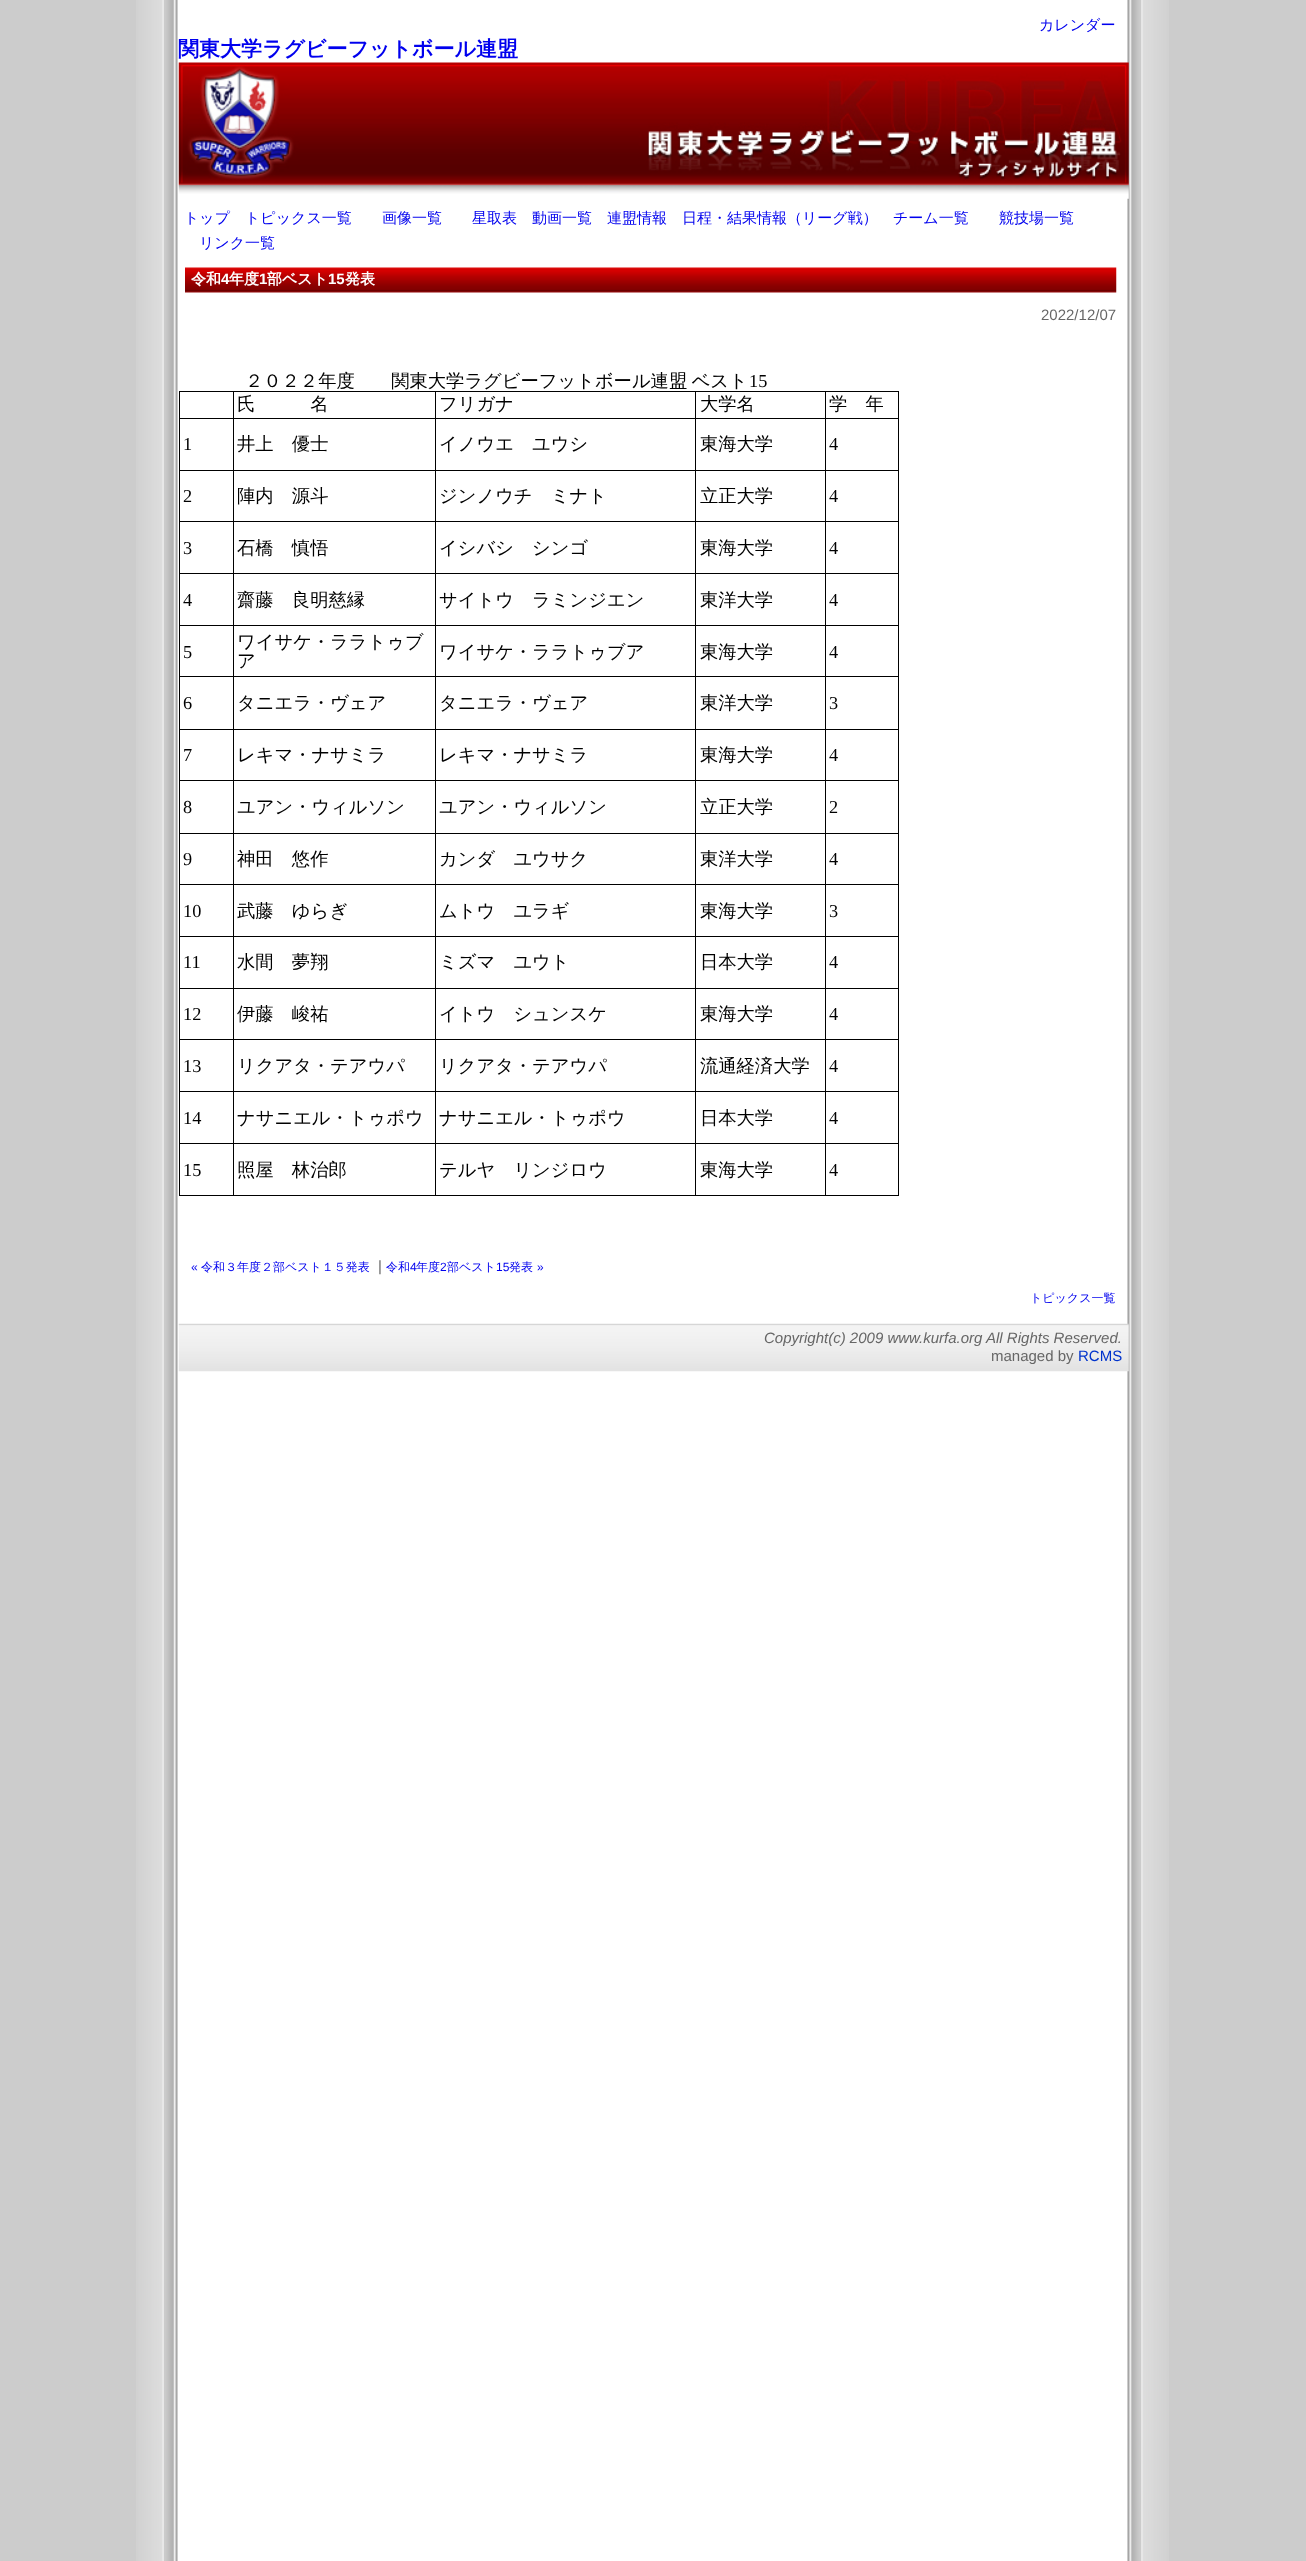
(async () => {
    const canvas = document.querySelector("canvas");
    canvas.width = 1306;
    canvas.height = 2561;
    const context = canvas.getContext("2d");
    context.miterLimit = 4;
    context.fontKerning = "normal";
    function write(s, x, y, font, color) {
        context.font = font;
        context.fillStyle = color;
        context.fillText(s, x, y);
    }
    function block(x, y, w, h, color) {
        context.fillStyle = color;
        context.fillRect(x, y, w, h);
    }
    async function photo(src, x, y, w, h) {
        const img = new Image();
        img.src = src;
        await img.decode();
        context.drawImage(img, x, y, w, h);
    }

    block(0, 0, 1306, 2561, "rgb(204, 204, 204)");
    await photo("media/1.png", 136, 0, 1033, 2561);
    write("カレンダー", 1039, 30, "500 15px WenQuanYi Zen Hei", "rgb(0, 0, 238)");
    write("関東大学ラグビーフットボール連盟", 178, 56, "bold 21px WenQuanYi Zen Hei", "rgb(0, 0, 238)");
    await photo("media/2.png", 178, 62, 951, 137);
    write("トップ", 184, 223, "500 15px WenQuanYi Zen Hei", "rgb(0, 0, 238)");
    write("トピックス一覧", 245, 223, "500 15px WenQuanYi Zen Hei", "rgb(0, 0, 238)");
    write("画像一覧", 382, 223, "500 15px WenQuanYi Zen Hei", "rgb(0, 0, 238)");
    write("星取表", 472, 223, "500 15px WenQuanYi Zen Hei", "rgb(0, 0, 238)");
    write("動画一覧", 532, 223, "500 15px WenQuanYi Zen Hei", "rgb(0, 0, 238)");
    write("連盟情報", 607, 223, "500 15px WenQuanYi Zen Hei", "rgb(0, 0, 238)");
    write("日程・結果情報（リーグ戦）", 682, 223, "500 15px WenQuanYi Zen Hei", "rgb(0, 0, 238)");
    write("チーム一覧", 893, 223, "500 15px WenQuanYi Zen Hei", "rgb(0, 0, 238)");
    write("競技場一覧", 999, 223, "500 15px WenQuanYi Zen Hei", "rgb(0, 0, 238)");
    write("リンク一覧", 199, 248, "500 15px WenQuanYi Zen Hei", "rgb(0, 0, 238)");
    await photo("media/3.png", 185, 267, 932, 26);
    write("令和", 191, 284, "bold 15px WenQuanYi Zen Hei", "rgb(255, 255, 255)");
    write("4", 221, 284, "bold 15px Liberation Sans", "rgb(255, 255, 255)");
    write("年度", 229, 284, "bold 15px WenQuanYi Zen Hei", "rgb(255, 255, 255)");
    write("1", 259, 284, "bold 15px Liberation Sans", "rgb(255, 255, 255)");
    write("部ベスト", 267, 284, "bold 15px WenQuanYi Zen Hei", "rgb(255, 255, 255)");
    write("15", 328, 284, "bold 15px Liberation Sans", "rgb(255, 255, 255)");
    write("発表", 345, 284, "bold 15px WenQuanYi Zen Hei", "rgb(255, 255, 255)");
    write("2022/12/07", 1041, 320, "15px Liberation Sans", "rgb(102, 102, 102)");
    context.wordSpacing = "-1px";
    write("２０２２年度　　関東大学ラグビーフットボール連盟 ベスト", 245, 387, "500 18.3px WenQuanYi Zen Hei", "rgb(0, 0, 0)");
    context.wordSpacing = "0px";
    write("15", 749, 387, "18.3px Liberation Serif", "rgb(0, 0, 0)");
    block(179, 391, 720, 1, "rgb(0, 0, 0)");
    block(898, 391, 1, 805, "rgb(0, 0, 0)");
    block(179, 1195, 720, 1, "rgb(0, 0, 0)");
    block(179, 391, 1, 805, "rgb(0, 0, 0)");
    block(825, 1143, 1, 53, "rgb(0, 0, 0)");
    block(825, 1143, 74, 1, "rgb(0, 0, 0)");
    block(825, 1091, 1, 53, "rgb(0, 0, 0)");
    block(825, 1091, 74, 1, "rgb(0, 0, 0)");
    block(825, 1039, 1, 54, "rgb(0, 0, 0)");
    block(825, 1039, 74, 1, "rgb(0, 0, 0)");
    block(825, 988, 1, 52, "rgb(0, 0, 0)");
    block(825, 988, 74, 1, "rgb(0, 0, 0)");
    block(825, 936, 1, 53, "rgb(0, 0, 0)");
    block(825, 936, 74, 1, "rgb(0, 0, 0)");
    block(825, 884, 1, 54, "rgb(0, 0, 0)");
    block(825, 884, 74, 1, "rgb(0, 0, 0)");
    block(825, 833, 1, 52, "rgb(0, 0, 0)");
    block(825, 833, 74, 1, "rgb(0, 0, 0)");
    block(825, 780, 1, 54, "rgb(0, 0, 0)");
    block(825, 780, 74, 1, "rgb(0, 0, 0)");
    block(825, 729, 1, 52, "rgb(0, 0, 0)");
    block(825, 729, 74, 1, "rgb(0, 0, 0)");
    block(825, 676, 1, 54, "rgb(0, 0, 0)");
    block(825, 676, 74, 1, "rgb(0, 0, 0)");
    block(825, 625, 1, 53, "rgb(0, 0, 0)");
    block(825, 625, 74, 1, "rgb(0, 0, 0)");
    block(825, 573, 1, 53, "rgb(0, 0, 0)");
    block(825, 573, 74, 1, "rgb(0, 0, 0)");
    block(825, 521, 1, 53, "rgb(0, 0, 0)");
    block(825, 521, 74, 1, "rgb(0, 0, 0)");
    block(825, 470, 1, 53, "rgb(0, 0, 0)");
    block(825, 470, 74, 1, "rgb(0, 0, 0)");
    block(825, 418, 1, 53, "rgb(0, 0, 0)");
    block(825, 418, 74, 1, "rgb(0, 0, 0)");
    block(825, 391, 1, 28, "rgb(0, 0, 0)");
    block(695, 1143, 1, 53, "rgb(0, 0, 0)");
    block(695, 1143, 131, 1, "rgb(0, 0, 0)");
    block(695, 1091, 1, 53, "rgb(0, 0, 0)");
    block(695, 1091, 131, 1, "rgb(0, 0, 0)");
    block(695, 1039, 1, 54, "rgb(0, 0, 0)");
    block(695, 1039, 131, 1, "rgb(0, 0, 0)");
    block(695, 988, 1, 52, "rgb(0, 0, 0)");
    block(695, 988, 131, 1, "rgb(0, 0, 0)");
    block(695, 936, 1, 53, "rgb(0, 0, 0)");
    block(695, 936, 131, 1, "rgb(0, 0, 0)");
    block(695, 884, 1, 54, "rgb(0, 0, 0)");
    block(695, 884, 131, 1, "rgb(0, 0, 0)");
    block(695, 833, 1, 52, "rgb(0, 0, 0)");
    block(695, 833, 131, 1, "rgb(0, 0, 0)");
    block(695, 780, 1, 54, "rgb(0, 0, 0)");
    block(695, 780, 131, 1, "rgb(0, 0, 0)");
    block(695, 729, 1, 52, "rgb(0, 0, 0)");
    block(695, 729, 131, 1, "rgb(0, 0, 0)");
    block(695, 676, 1, 54, "rgb(0, 0, 0)");
    block(695, 676, 131, 1, "rgb(0, 0, 0)");
    block(695, 625, 1, 53, "rgb(0, 0, 0)");
    block(695, 625, 131, 1, "rgb(0, 0, 0)");
    block(695, 573, 1, 53, "rgb(0, 0, 0)");
    block(695, 573, 131, 1, "rgb(0, 0, 0)");
    block(695, 521, 1, 53, "rgb(0, 0, 0)");
    block(695, 521, 131, 1, "rgb(0, 0, 0)");
    block(695, 470, 1, 53, "rgb(0, 0, 0)");
    block(695, 470, 131, 1, "rgb(0, 0, 0)");
    block(695, 418, 1, 53, "rgb(0, 0, 0)");
    block(695, 418, 131, 1, "rgb(0, 0, 0)");
    block(695, 391, 1, 28, "rgb(0, 0, 0)");
    block(435, 1143, 1, 53, "rgb(0, 0, 0)");
    block(435, 1143, 261, 1, "rgb(0, 0, 0)");
    block(435, 1091, 1, 53, "rgb(0, 0, 0)");
    block(435, 1091, 261, 1, "rgb(0, 0, 0)");
    block(435, 1039, 1, 54, "rgb(0, 0, 0)");
    block(435, 1039, 261, 1, "rgb(0, 0, 0)");
    block(435, 988, 1, 52, "rgb(0, 0, 0)");
    block(435, 988, 261, 1, "rgb(0, 0, 0)");
    block(435, 936, 1, 53, "rgb(0, 0, 0)");
    block(435, 936, 261, 1, "rgb(0, 0, 0)");
    block(435, 884, 1, 54, "rgb(0, 0, 0)");
    block(435, 884, 261, 1, "rgb(0, 0, 0)");
    block(435, 833, 1, 52, "rgb(0, 0, 0)");
    block(435, 833, 261, 1, "rgb(0, 0, 0)");
    block(435, 780, 1, 54, "rgb(0, 0, 0)");
    block(435, 780, 261, 1, "rgb(0, 0, 0)");
    block(435, 729, 1, 52, "rgb(0, 0, 0)");
    block(435, 729, 261, 1, "rgb(0, 0, 0)");
    block(435, 676, 1, 54, "rgb(0, 0, 0)");
    block(435, 676, 261, 1, "rgb(0, 0, 0)");
    block(435, 625, 1, 53, "rgb(0, 0, 0)");
    block(435, 625, 261, 1, "rgb(0, 0, 0)");
    block(435, 573, 1, 53, "rgb(0, 0, 0)");
    block(435, 573, 261, 1, "rgb(0, 0, 0)");
    block(435, 521, 1, 53, "rgb(0, 0, 0)");
    block(435, 521, 261, 1, "rgb(0, 0, 0)");
    block(435, 470, 1, 53, "rgb(0, 0, 0)");
    block(435, 470, 261, 1, "rgb(0, 0, 0)");
    block(435, 418, 1, 53, "rgb(0, 0, 0)");
    block(435, 418, 261, 1, "rgb(0, 0, 0)");
    block(435, 391, 1, 28, "rgb(0, 0, 0)");
    block(233, 1143, 1, 53, "rgb(0, 0, 0)");
    block(233, 1143, 203, 1, "rgb(0, 0, 0)");
    block(233, 1091, 1, 53, "rgb(0, 0, 0)");
    block(233, 1091, 203, 1, "rgb(0, 0, 0)");
    block(233, 1039, 1, 54, "rgb(0, 0, 0)");
    block(233, 1039, 203, 1, "rgb(0, 0, 0)");
    block(233, 988, 1, 52, "rgb(0, 0, 0)");
    block(233, 988, 203, 1, "rgb(0, 0, 0)");
    block(233, 936, 1, 53, "rgb(0, 0, 0)");
    block(233, 936, 203, 1, "rgb(0, 0, 0)");
    block(233, 884, 1, 54, "rgb(0, 0, 0)");
    block(233, 884, 203, 1, "rgb(0, 0, 0)");
    block(233, 833, 1, 52, "rgb(0, 0, 0)");
    block(233, 833, 203, 1, "rgb(0, 0, 0)");
    block(233, 780, 1, 54, "rgb(0, 0, 0)");
    block(233, 780, 203, 1, "rgb(0, 0, 0)");
    block(233, 729, 1, 52, "rgb(0, 0, 0)");
    block(233, 729, 203, 1, "rgb(0, 0, 0)");
    block(233, 676, 1, 54, "rgb(0, 0, 0)");
    block(233, 676, 203, 1, "rgb(0, 0, 0)");
    block(233, 625, 1, 53, "rgb(0, 0, 0)");
    block(233, 625, 203, 1, "rgb(0, 0, 0)");
    block(233, 573, 1, 53, "rgb(0, 0, 0)");
    block(233, 573, 203, 1, "rgb(0, 0, 0)");
    block(233, 521, 1, 53, "rgb(0, 0, 0)");
    block(233, 521, 203, 1, "rgb(0, 0, 0)");
    block(233, 470, 1, 53, "rgb(0, 0, 0)");
    block(233, 470, 203, 1, "rgb(0, 0, 0)");
    block(233, 418, 1, 53, "rgb(0, 0, 0)");
    block(233, 418, 203, 1, "rgb(0, 0, 0)");
    block(233, 391, 1, 28, "rgb(0, 0, 0)");
    block(179, 418, 55, 1, "rgb(0, 0, 0)");
    write("氏　　　名", 237, 410, "500 18.3px WenQuanYi Zen Hei", "rgb(0, 0, 0)");
    write("フリガナ", 439, 410, "500 18.3px WenQuanYi Zen Hei", "rgb(0, 0, 0)");
    write("大学名", 700, 410, "500 18.3px WenQuanYi Zen Hei", "rgb(0, 0, 0)");
    write("学　年", 829, 410, "500 18.3px WenQuanYi Zen Hei", "rgb(0, 0, 0)");
    block(179, 470, 55, 1, "rgb(0, 0, 0)");
    write("1", 183, 450, "18.3px Liberation Serif", "rgb(0, 0, 0)");
    write("井上　優士", 237, 450, "500 18.3px WenQuanYi Zen Hei", "rgb(0, 0, 0)");
    write("イノウエ　ユウシ", 439, 450, "500 18.3px WenQuanYi Zen Hei", "rgb(0, 0, 0)");
    write("東海大学", 700, 450, "500 18.3px WenQuanYi Zen Hei", "rgb(0, 0, 0)");
    write("4", 829, 450, "18.3px Liberation Serif", "rgb(0, 0, 0)");
    block(179, 521, 55, 1, "rgb(0, 0, 0)");
    write("2", 183, 502, "18.3px Liberation Serif", "rgb(0, 0, 0)");
    write("陣内　源斗", 237, 502, "500 18.3px WenQuanYi Zen Hei", "rgb(0, 0, 0)");
    write("ジンノウチ　ミナト", 439, 502, "500 18.3px WenQuanYi Zen Hei", "rgb(0, 0, 0)");
    write("立正大学", 700, 502, "500 18.3px WenQuanYi Zen Hei", "rgb(0, 0, 0)");
    write("4", 829, 502, "18.3px Liberation Serif", "rgb(0, 0, 0)");
    block(179, 573, 55, 1, "rgb(0, 0, 0)");
    write("3", 183, 554, "18.3px Liberation Serif", "rgb(0, 0, 0)");
    write("石橋　慎悟", 237, 554, "500 18.3px WenQuanYi Zen Hei", "rgb(0, 0, 0)");
    write("イシバシ　シンゴ", 439, 554, "500 18.3px WenQuanYi Zen Hei", "rgb(0, 0, 0)");
    write("東海大学", 700, 554, "500 18.3px WenQuanYi Zen Hei", "rgb(0, 0, 0)");
    write("4", 829, 554, "18.3px Liberation Serif", "rgb(0, 0, 0)");
    block(179, 625, 55, 1, "rgb(0, 0, 0)");
    write("4", 183, 606, "18.3px Liberation Serif", "rgb(0, 0, 0)");
    write("齋藤　良明慈縁", 237, 606, "500 18.3px WenQuanYi Zen Hei", "rgb(0, 0, 0)");
    write("サイトウ　ラミンジエン", 439, 606, "500 18.3px WenQuanYi Zen Hei", "rgb(0, 0, 0)");
    write("東洋大学", 700, 606, "500 18.3px WenQuanYi Zen Hei", "rgb(0, 0, 0)");
    write("4", 829, 606, "18.3px Liberation Serif", "rgb(0, 0, 0)");
    block(179, 676, 55, 1, "rgb(0, 0, 0)");
    write("5", 183, 658, "18.3px Liberation Serif", "rgb(0, 0, 0)");
    write("ワイサケ・ララトゥブ", 237, 648, "500 18.3px WenQuanYi Zen Hei", "rgb(0, 0, 0)");
    write("ア", 237, 667, "500 18.3px WenQuanYi Zen Hei", "rgb(0, 0, 0)");
    write("ワイサケ・ララトゥブア", 439, 658, "500 18.3px WenQuanYi Zen Hei", "rgb(0, 0, 0)");
    write("東海大学", 700, 658, "500 18.3px WenQuanYi Zen Hei", "rgb(0, 0, 0)");
    write("4", 829, 658, "18.3px Liberation Serif", "rgb(0, 0, 0)");
    block(179, 729, 55, 1, "rgb(0, 0, 0)");
    write("6", 183, 709, "18.3px Liberation Serif", "rgb(0, 0, 0)");
    write("タニエラ・ヴェア", 237, 709, "500 18.3px WenQuanYi Zen Hei", "rgb(0, 0, 0)");
    write("タニエラ・ヴェア", 439, 709, "500 18.3px WenQuanYi Zen Hei", "rgb(0, 0, 0)");
    write("東洋大学", 700, 709, "500 18.3px WenQuanYi Zen Hei", "rgb(0, 0, 0)");
    write("3", 829, 709, "18.3px Liberation Serif", "rgb(0, 0, 0)");
    block(179, 780, 55, 1, "rgb(0, 0, 0)");
    write("7", 183, 761, "18.3px Liberation Serif", "rgb(0, 0, 0)");
    write("レキマ・ナサミラ", 237, 761, "500 18.3px WenQuanYi Zen Hei", "rgb(0, 0, 0)");
    write("レキマ・ナサミラ", 439, 761, "500 18.3px WenQuanYi Zen Hei", "rgb(0, 0, 0)");
    write("東海大学", 700, 761, "500 18.3px WenQuanYi Zen Hei", "rgb(0, 0, 0)");
    write("4", 829, 761, "18.3px Liberation Serif", "rgb(0, 0, 0)");
    block(179, 833, 55, 1, "rgb(0, 0, 0)");
    write("8", 183, 813, "18.3px Liberation Serif", "rgb(0, 0, 0)");
    write("ユアン・ウィルソン", 237, 813, "500 18.3px WenQuanYi Zen Hei", "rgb(0, 0, 0)");
    write("ユアン・ウィルソン", 439, 813, "500 18.3px WenQuanYi Zen Hei", "rgb(0, 0, 0)");
    write("立正大学", 700, 813, "500 18.3px WenQuanYi Zen Hei", "rgb(0, 0, 0)");
    write("2", 829, 813, "18.3px Liberation Serif", "rgb(0, 0, 0)");
    block(179, 884, 55, 1, "rgb(0, 0, 0)");
    write("9", 183, 865, "18.3px Liberation Serif", "rgb(0, 0, 0)");
    write("神田　悠作", 237, 865, "500 18.3px WenQuanYi Zen Hei", "rgb(0, 0, 0)");
    write("カンダ　ユウサク", 439, 865, "500 18.3px WenQuanYi Zen Hei", "rgb(0, 0, 0)");
    write("東洋大学", 700, 865, "500 18.3px WenQuanYi Zen Hei", "rgb(0, 0, 0)");
    write("4", 829, 865, "18.3px Liberation Serif", "rgb(0, 0, 0)");
    block(179, 936, 55, 1, "rgb(0, 0, 0)");
    write("10", 183, 917, "18.3px Liberation Serif", "rgb(0, 0, 0)");
    write("武藤　ゆらぎ", 237, 917, "500 18.3px WenQuanYi Zen Hei", "rgb(0, 0, 0)");
    write("ムトウ　ユラギ", 439, 917, "500 18.3px WenQuanYi Zen Hei", "rgb(0, 0, 0)");
    write("東海大学", 700, 917, "500 18.3px WenQuanYi Zen Hei", "rgb(0, 0, 0)");
    write("3", 829, 917, "18.3px Liberation Serif", "rgb(0, 0, 0)");
    block(179, 988, 55, 1, "rgb(0, 0, 0)");
    write("11", 183, 968, "18.3px Liberation Serif", "rgb(0, 0, 0)");
    write("水間　夢翔", 237, 968, "500 18.3px WenQuanYi Zen Hei", "rgb(0, 0, 0)");
    write("ミズマ　ユウト", 439, 968, "500 18.3px WenQuanYi Zen Hei", "rgb(0, 0, 0)");
    write("日本大学", 700, 968, "500 18.3px WenQuanYi Zen Hei", "rgb(0, 0, 0)");
    write("4", 829, 968, "18.3px Liberation Serif", "rgb(0, 0, 0)");
    block(179, 1039, 55, 1, "rgb(0, 0, 0)");
    write("12", 183, 1020, "18.3px Liberation Serif", "rgb(0, 0, 0)");
    write("伊藤　峻祐", 237, 1020, "500 18.3px WenQuanYi Zen Hei", "rgb(0, 0, 0)");
    write("イトウ　シュンスケ", 439, 1020, "500 18.3px WenQuanYi Zen Hei", "rgb(0, 0, 0)");
    write("東海大学", 700, 1020, "500 18.3px WenQuanYi Zen Hei", "rgb(0, 0, 0)");
    write("4", 829, 1020, "18.3px Liberation Serif", "rgb(0, 0, 0)");
    block(179, 1091, 55, 1, "rgb(0, 0, 0)");
    write("13", 183, 1072, "18.3px Liberation Serif", "rgb(0, 0, 0)");
    write("リクアタ・テアウパ", 237, 1072, "500 18.3px WenQuanYi Zen Hei", "rgb(0, 0, 0)");
    write("リクアタ・テアウパ", 439, 1072, "500 18.3px WenQuanYi Zen Hei", "rgb(0, 0, 0)");
    write("流通経済大学", 700, 1072, "500 18.3px WenQuanYi Zen Hei", "rgb(0, 0, 0)");
    write("4", 829, 1072, "18.3px Liberation Serif", "rgb(0, 0, 0)");
    block(179, 1143, 55, 1, "rgb(0, 0, 0)");
    write("14", 183, 1124, "18.3px Liberation Serif", "rgb(0, 0, 0)");
    write("ナサニエル・トゥポウ", 237, 1124, "500 18.3px WenQuanYi Zen Hei", "rgb(0, 0, 0)");
    write("ナサニエル・トゥポウ", 439, 1124, "500 18.3px WenQuanYi Zen Hei", "rgb(0, 0, 0)");
    write("日本大学", 700, 1124, "500 18.3px WenQuanYi Zen Hei", "rgb(0, 0, 0)");
    write("4", 829, 1124, "18.3px Liberation Serif", "rgb(0, 0, 0)");
    write("15", 183, 1176, "18.3px Liberation Serif", "rgb(0, 0, 0)");
    write("照屋　林治郎", 237, 1176, "500 18.3px WenQuanYi Zen Hei", "rgb(0, 0, 0)");
    write("テルヤ　リンジロウ", 439, 1176, "500 18.3px WenQuanYi Zen Hei", "rgb(0, 0, 0)");
    write("東海大学", 700, 1176, "500 18.3px WenQuanYi Zen Hei", "rgb(0, 0, 0)");
    write("4", 829, 1176, "18.3px Liberation Serif", "rgb(0, 0, 0)");
    write("«", 191, 1271, "12px Liberation Sans", "rgb(0, 0, 238)");
    write("令和３年度２部ベスト１５発表", 201, 1271, "500 12px WenQuanYi Zen Hei", "rgb(0, 0, 238)");
    write("|", 378, 1271, "15px Liberation Sans", "rgb(102, 102, 102)");
    write("令和", 386, 1271, "500 12px WenQuanYi Zen Hei", "rgb(0, 0, 238)");
    write("4", 410, 1271, "12px Liberation Sans", "rgb(0, 0, 238)");
    write("年度", 416, 1271, "500 12px WenQuanYi Zen Hei", "rgb(0, 0, 238)");
    write("2", 440, 1271, "12px Liberation Sans", "rgb(0, 0, 238)");
    write("部ベスト", 447, 1271, "500 12px WenQuanYi Zen Hei", "rgb(0, 0, 238)");
    write("15", 496, 1271, "12px Liberation Sans", "rgb(0, 0, 238)");
    write("発表", 509, 1271, "500 12px WenQuanYi Zen Hei", "rgb(0, 0, 238)");
    write("»", 537, 1271, "12px Liberation Sans", "rgb(0, 0, 238)");
    write("トピックス一覧", 1030, 1302, "500 12px WenQuanYi Zen Hei", "rgb(0, 0, 238)");
    await photo("media/4.png", 178, 1323, 951, 49);
    write("Copyright(c) 2009 www.kurfa.org All Rights Reserved.", 764, 1343, "italic 15px Liberation Sans", "rgb(102, 102, 102)");
    write("managed by", 991, 1361, "15px Liberation Sans", "rgb(102, 102, 102)");
    write("RCMS", 1078, 1361, "15px Liberation Sans", "rgb(0, 51, 204)");
})();
